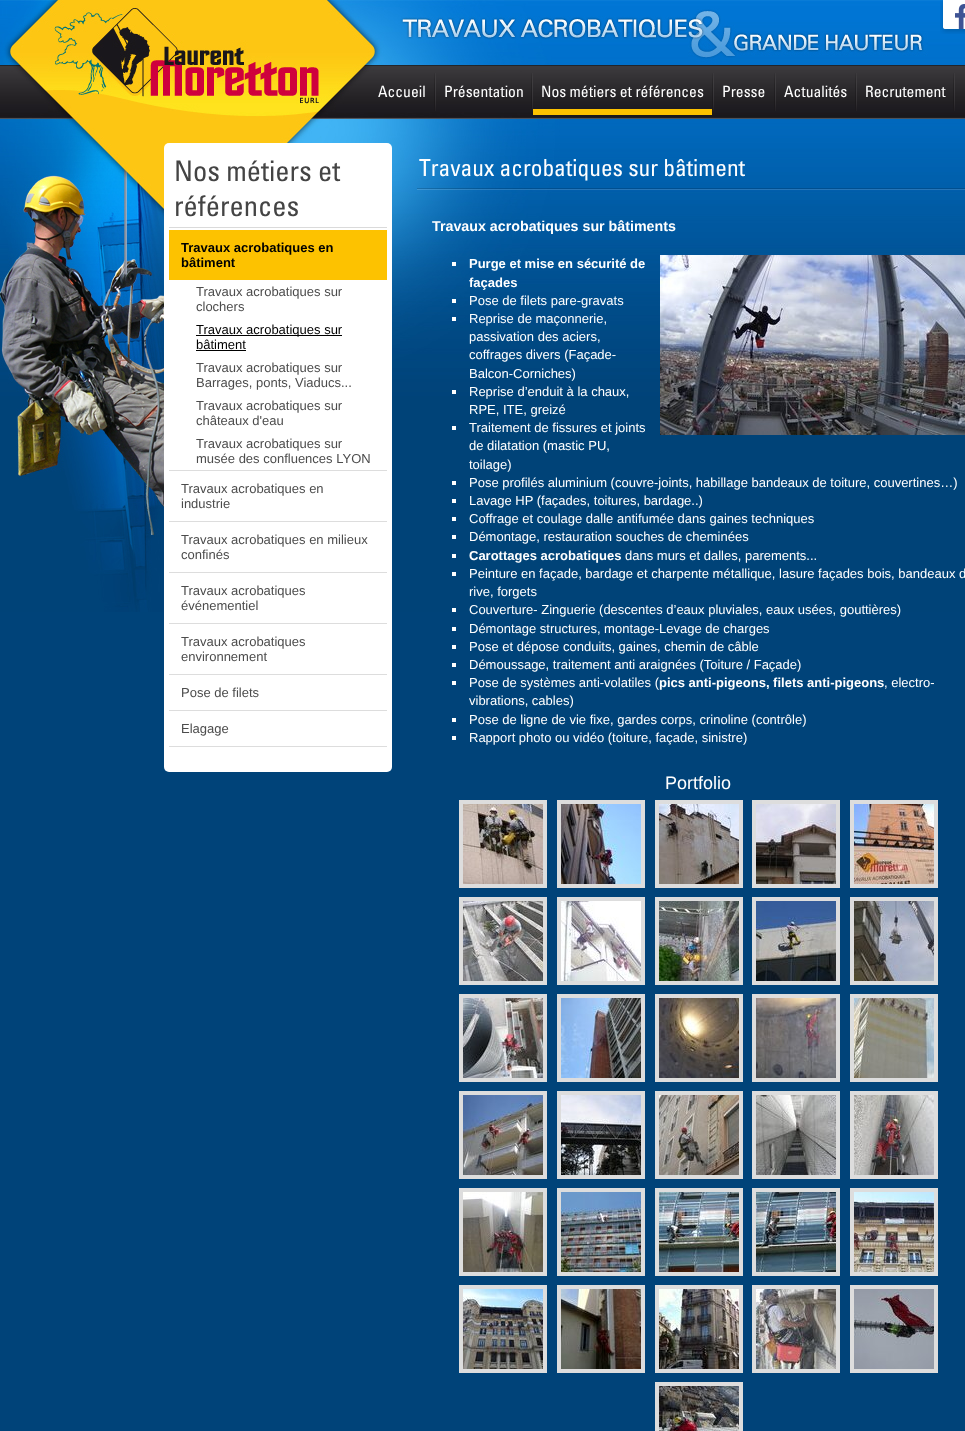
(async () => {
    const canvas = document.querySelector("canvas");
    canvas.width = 965;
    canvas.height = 1431;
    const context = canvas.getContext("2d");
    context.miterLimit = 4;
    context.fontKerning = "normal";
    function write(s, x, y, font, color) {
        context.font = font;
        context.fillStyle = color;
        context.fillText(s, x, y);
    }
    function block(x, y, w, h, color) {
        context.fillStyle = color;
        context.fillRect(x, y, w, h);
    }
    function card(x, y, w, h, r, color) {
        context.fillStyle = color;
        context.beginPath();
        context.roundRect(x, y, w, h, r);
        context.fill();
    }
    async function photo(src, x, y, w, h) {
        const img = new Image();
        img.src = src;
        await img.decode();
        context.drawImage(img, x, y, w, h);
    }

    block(0, 0, 965, 1431, "rgb(0, 67, 121)");
    await photo("media/1.png", 0, 0, 965, 612);
    await photo("media/2.png", 940, 0, 25, 34);
    await photo("media/3.png", 434, 73, 2, 38);
    write("Accueil", 378, 97, "15.6px Univers", "rgb(255, 255, 255)");
    await photo("media/3.png", 531, 73, 2, 38);
    write("Présentation", 444, 97, "15.6px Univers", "rgb(255, 255, 255)");
    await photo("media/3.png", 712, 73, 2, 38);
    block(533, 109, 179, 6, "rgb(253, 194, 0)");
    write("Nos métiers et références", 541, 97, "15.6px Univers", "rgb(255, 255, 255)");
    await photo("media/3.png", 774, 73, 2, 38);
    write("Presse", 722, 97, "15.6px Univers", "rgb(255, 255, 255)");
    await photo("media/3.png", 855, 73, 2, 38);
    write("Actualités", 784, 97, "15.6px Univers", "rgb(255, 255, 255)");
    await photo("media/3.png", 953, 73, 2, 38);
    write("Recrutement", 865, 97, "15.6px Univers", "rgb(255, 255, 255)");
    card(164, 143, 228, 629, 5, "rgb(255, 255, 255)");
    block(169, 227, 218, 1, "rgb(218, 218, 218)");
    write("Nos métiers et", 174, 181, "28.5px Univers", "rgb(68, 68, 68)");
    write("références", 174, 216, "28.5px Univers", "rgb(68, 68, 68)");
    block(169, 470, 218, 1, "rgb(221, 221, 221)");
    block(169, 230, 218, 50, "rgb(253, 194, 0)");
    write("Travaux acrobatiques en", 181, 252, "bold 13px Liberation Sans", "rgb(0, 0, 0)");
    write("bâtiment", 181, 267, "bold 13px Liberation Sans", "rgb(0, 0, 0)");
    write("Travaux acrobatiques sur", 196, 296, "13px Liberation Sans", "rgb(76, 76, 76)");
    write("clochers", 196, 311, "13px Liberation Sans", "rgb(76, 76, 76)");
    block(196, 335, 146, 1, "rgb(0, 0, 0)");
    write("Travaux acrobatiques sur", 196, 334, "13px Liberation Sans", "rgb(0, 0, 0)");
    write("bâtiment", 196, 349, "13px Liberation Sans", "rgb(0, 0, 0)");
    block(196, 350, 50, 1, "rgb(0, 0, 0)");
    write("Travaux acrobatiques sur", 196, 372, "13px Liberation Sans", "rgb(76, 76, 76)");
    write("Barrages, ponts, Viaducs...", 196, 387, "13px Liberation Sans", "rgb(76, 76, 76)");
    write("Travaux acrobatiques sur", 196, 410, "13px Liberation Sans", "rgb(76, 76, 76)");
    write("châteaux d'eau", 196, 425, "13px Liberation Sans", "rgb(76, 76, 76)");
    write("Travaux acrobatiques sur", 196, 448, "13px Liberation Sans", "rgb(76, 76, 76)");
    write("musée des confluences LYON", 196, 463, "13px Liberation Sans", "rgb(76, 76, 76)");
    block(169, 521, 218, 1, "rgb(221, 221, 221)");
    write("Travaux acrobatiques en", 181, 493, "13px Liberation Sans", "rgb(76, 76, 76)");
    write("industrie", 181, 508, "13px Liberation Sans", "rgb(76, 76, 76)");
    block(169, 572, 218, 1, "rgb(221, 221, 221)");
    write("Travaux acrobatiques en milieux", 181, 544, "13px Liberation Sans", "rgb(76, 76, 76)");
    write("confinés", 181, 559, "13px Liberation Sans", "rgb(76, 76, 76)");
    block(169, 623, 218, 1, "rgb(221, 221, 221)");
    write("Travaux acrobatiques", 181, 595, "13px Liberation Sans", "rgb(76, 76, 76)");
    write("événementiel", 181, 610, "13px Liberation Sans", "rgb(76, 76, 76)");
    block(169, 674, 218, 1, "rgb(221, 221, 221)");
    write("Travaux acrobatiques", 181, 646, "13px Liberation Sans", "rgb(76, 76, 76)");
    write("environnement", 181, 661, "13px Liberation Sans", "rgb(76, 76, 76)");
    block(169, 710, 218, 1, "rgb(221, 221, 221)");
    write("Pose de filets", 181, 697, "13px Liberation Sans", "rgb(76, 76, 76)");
    block(169, 746, 218, 1, "rgb(221, 221, 221)");
    write("Elagage", 181, 733, "13px Liberation Sans", "rgb(76, 76, 76)");
    await photo("media/4.png", 417, 188, 548, 2);
    write("Travaux acrobatiques sur bâtiment", 419, 176, "23.4px Univers", "rgb(255, 255, 255)");
    write("Travaux acrobatiques sur bâtiments", 432, 231, "bold 14.25px Liberation Sans", "rgb(255, 255, 255)");
    await photo("media/5.png", 660, 255, 305, 180);
    block(452, 262, 4, 4, "rgb(255, 255, 255)");
    write("Purge et mise en sécurité de", 469, 268, "bold 13px Liberation Sans", "rgb(255, 255, 255)");
    write("façades", 469, 287, "bold 13px Liberation Sans", "rgb(255, 255, 255)");
    block(452, 299, 4, 4, "rgb(255, 255, 255)");
    write("Pose de filets pare-gravats", 469, 305, "13px Liberation Sans", "rgb(255, 255, 255)");
    block(452, 317, 4, 4, "rgb(255, 255, 255)");
    write("Reprise de maçonnerie,", 469, 323, "13px Liberation Sans", "rgb(255, 255, 255)");
    write("passivation des aciers,", 469, 341, "13px Liberation Sans", "rgb(255, 255, 255)");
    write("coffrages divers (Façade-", 469, 359, "13px Liberation Sans", "rgb(255, 255, 255)");
    write("Balcon-Corniches)", 469, 378, "13px Liberation Sans", "rgb(255, 255, 255)");
    block(452, 390, 4, 4, "rgb(255, 255, 255)");
    write("Reprise d’enduit à la chaux,", 469, 396, "13px Liberation Sans", "rgb(255, 255, 255)");
    write("RPE, ITE, greizé", 469, 414, "13px Liberation Sans", "rgb(255, 255, 255)");
    block(452, 426, 4, 4, "rgb(255, 255, 255)");
    write("Traitement de fissures et joints", 469, 432, "13px Liberation Sans", "rgb(255, 255, 255)");
    write("de dilatation (mastic PU,", 469, 450, "13px Liberation Sans", "rgb(255, 255, 255)");
    write("toilage)", 469, 469, "13px Liberation Sans", "rgb(255, 255, 255)");
    block(452, 481, 4, 4, "rgb(255, 255, 255)");
    write("Pose profilés aluminium (couvre-joints, habillage bandeaux de toiture, couvertines…)", 469, 487, "13px Liberation Sans", "rgb(255, 255, 255)");
    block(452, 499, 4, 4, "rgb(255, 255, 255)");
    write("Lavage HP (façades, toitures, bardage..)", 469, 505, "13px Liberation Sans", "rgb(255, 255, 255)");
    block(452, 517, 4, 4, "rgb(255, 255, 255)");
    write("Coffrage et coulage dalle antifumée dans gaines techniques", 469, 523, "13px Liberation Sans", "rgb(255, 255, 255)");
    block(452, 535, 4, 4, "rgb(255, 255, 255)");
    write("Démontage, restauration souches de cheminées", 469, 541, "13px Liberation Sans", "rgb(255, 255, 255)");
    block(452, 554, 4, 4, "rgb(255, 255, 255)");
    write("Carottages acrobatiques", 469, 560, "bold 13px Liberation Sans", "rgb(255, 255, 255)");
    write("dans murs et dalles, parements...", 625, 560, "13px Liberation Sans", "rgb(255, 255, 255)");
    block(452, 572, 4, 4, "rgb(255, 255, 255)");
    write("Peinture en façade, bardage et charpente métallique, lasure façades bois, bandeaux d", 469, 578, "13px Liberation Sans", "rgb(255, 255, 255)");
    write("rive, forgets", 469, 596, "13px Liberation Sans", "rgb(255, 255, 255)");
    block(452, 608, 4, 4, "rgb(255, 255, 255)");
    write("Couverture- Zinguerie (descentes d’eaux pluviales, eaux usées, gouttières)", 469, 614, "13px Liberation Sans", "rgb(255, 255, 255)");
    block(452, 627, 4, 4, "rgb(255, 255, 255)");
    write("Démontage structures, montage-Levage de charges", 469, 633, "13px Liberation Sans", "rgb(255, 255, 255)");
    block(452, 645, 4, 4, "rgb(255, 255, 255)");
    write("Pose et dépose conduits, gaines, chemin de câble", 469, 651, "13px Liberation Sans", "rgb(255, 255, 255)");
    block(452, 663, 4, 4, "rgb(255, 255, 255)");
    write("Démoussage, traitement anti araignées (Toiture / Façade)", 469, 669, "13px Liberation Sans", "rgb(255, 255, 255)");
    block(452, 681, 4, 4, "rgb(255, 255, 255)");
    write("Pose de systèmes anti-volatiles (", 469, 687, "13px Liberation Sans", "rgb(255, 255, 255)");
    write("pics anti-pigeons, filets anti-pigeons", 659, 687, "bold 13px Liberation Sans", "rgb(255, 255, 255)");
    write(", electro-", 884, 687, "13px Liberation Sans", "rgb(255, 255, 255)");
    write("vibrations, cables)", 469, 705, "13px Liberation Sans", "rgb(255, 255, 255)");
    block(452, 718, 4, 4, "rgb(255, 255, 255)");
    write("Pose de ligne de vie fixe, gardes corps, crinoline (contrôle)", 469, 724, "13px Liberation Sans", "rgb(255, 255, 255)");
    block(452, 736, 4, 4, "rgb(255, 255, 255)");
    write("Rapport photo ou vidéo (toiture, façade, sinistre)", 469, 742, "13px Liberation Sans", "rgb(255, 255, 255)");
    write("Portfolio", 665, 789, "18px Liberation Sans", "rgb(255, 255, 255)");
    context.strokeStyle = "rgb(221, 221, 221)";
    context.lineWidth = 4;
    context.strokeRect(461, 802, 84, 84);
    context.strokeRect(559, 802, 84, 84);
    context.strokeRect(657, 802, 84, 84);
    context.strokeRect(754, 802, 84, 84);
    context.strokeRect(852, 802, 84, 84);
    await photo("media/6.png", 463, 804, 80, 80);
    await photo("media/7.png", 561, 804, 80, 80);
    await photo("media/8.png", 659, 804, 80, 80);
    await photo("media/9.png", 756, 804, 80, 80);
    await photo("media/10.png", 854, 804, 80, 80);
    context.strokeRect(461, 899, 84, 84);
    context.strokeRect(559, 899, 84, 84);
    context.strokeRect(657, 899, 84, 84);
    context.strokeRect(754, 899, 84, 84);
    context.strokeRect(852, 899, 84, 84);
    await photo("media/11.png", 463, 901, 80, 80);
    await photo("media/12.png", 561, 901, 80, 80);
    await photo("media/13.png", 659, 901, 80, 80);
    await photo("media/14.png", 756, 901, 80, 80);
    await photo("media/15.png", 854, 901, 80, 80);
    context.strokeRect(461, 996, 84, 84);
    context.strokeRect(559, 996, 84, 84);
    context.strokeRect(657, 996, 84, 84);
    context.strokeRect(754, 996, 84, 84);
    context.strokeRect(852, 996, 84, 84);
    await photo("media/16.png", 463, 998, 80, 80);
    await photo("media/17.png", 561, 998, 80, 80);
    await photo("media/18.png", 659, 998, 80, 80);
    await photo("media/19.png", 756, 998, 80, 80);
    await photo("media/20.png", 854, 998, 80, 80);
    context.strokeRect(461, 1093, 84, 84);
    context.strokeRect(559, 1093, 84, 84);
    context.strokeRect(657, 1093, 84, 84);
    context.strokeRect(754, 1093, 84, 84);
    context.strokeRect(852, 1093, 84, 84);
    await photo("media/21.png", 463, 1095, 80, 80);
    await photo("media/22.png", 561, 1095, 80, 80);
    await photo("media/23.png", 659, 1095, 80, 80);
    await photo("media/24.png", 756, 1095, 80, 80);
    await photo("media/25.png", 854, 1095, 80, 80);
    context.strokeRect(461, 1190, 84, 84);
    context.strokeRect(559, 1190, 84, 84);
    context.strokeRect(657, 1190, 84, 84);
    context.strokeRect(754, 1190, 84, 84);
    context.strokeRect(852, 1190, 84, 84);
    await photo("media/26.png", 463, 1192, 80, 80);
    await photo("media/27.png", 561, 1192, 80, 80);
    await photo("media/28.png", 659, 1192, 80, 80);
    await photo("media/29.png", 756, 1192, 80, 80);
    await photo("media/30.png", 854, 1192, 80, 80);
    context.strokeRect(461, 1287, 84, 84);
    context.strokeRect(559, 1287, 84, 84);
    context.strokeRect(657, 1287, 84, 84);
    context.strokeRect(754, 1287, 84, 84);
    context.strokeRect(852, 1287, 84, 84);
    await photo("media/31.png", 463, 1289, 80, 80);
    await photo("media/32.png", 561, 1289, 80, 80);
    await photo("media/33.png", 659, 1289, 80, 80);
    await photo("media/34.png", 756, 1289, 80, 80);
    await photo("media/35.png", 854, 1289, 80, 80);
    context.strokeRect(657, 1384, 84, 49);
    await photo("media/36.png", 659, 1386, 80, 45);
})();
